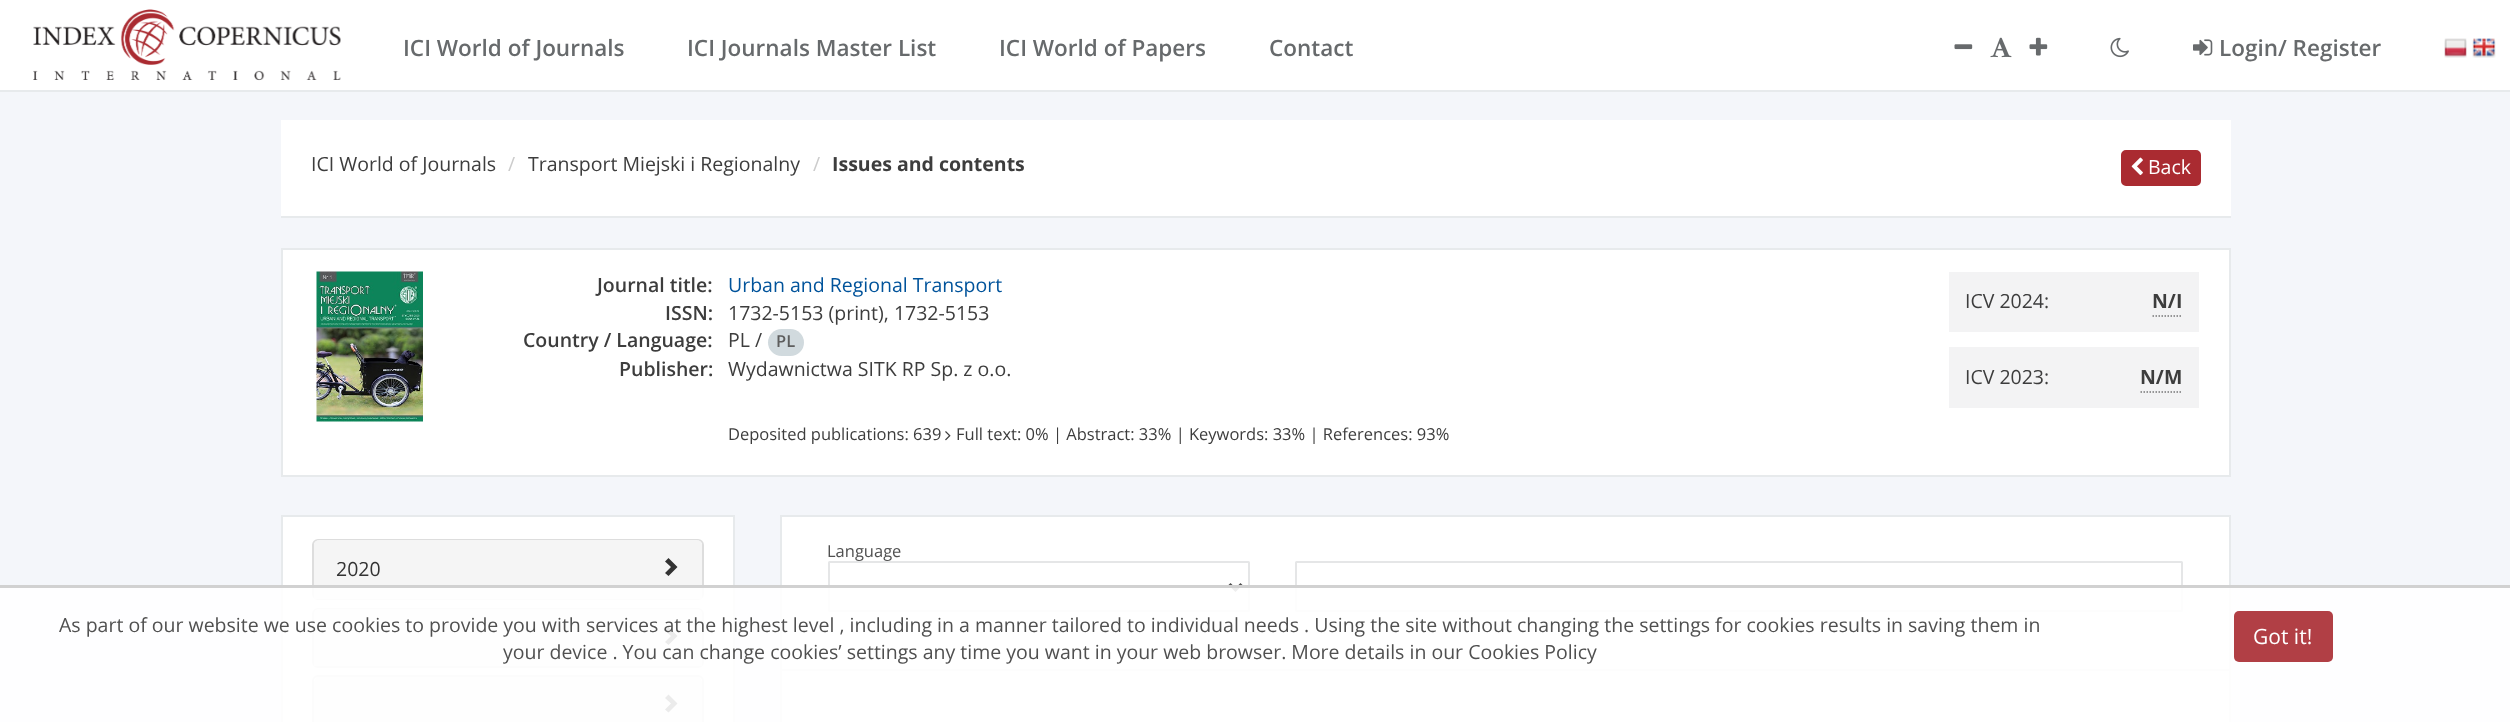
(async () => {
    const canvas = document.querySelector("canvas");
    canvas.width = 2510;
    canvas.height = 722;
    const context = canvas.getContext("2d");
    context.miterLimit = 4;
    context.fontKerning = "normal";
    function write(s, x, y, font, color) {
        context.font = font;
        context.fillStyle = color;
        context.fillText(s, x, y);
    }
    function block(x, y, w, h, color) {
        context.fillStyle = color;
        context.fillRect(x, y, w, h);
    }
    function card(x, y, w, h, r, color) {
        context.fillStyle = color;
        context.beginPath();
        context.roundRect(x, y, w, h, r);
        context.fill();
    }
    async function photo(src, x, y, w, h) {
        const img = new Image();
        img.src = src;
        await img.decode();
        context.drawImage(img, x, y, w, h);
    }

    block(0, 0, 2510, 722, "rgb(244, 246, 250)");
    block(0, 0, 2510, 90, "rgb(255, 255, 255)");
    block(0, 90, 2510, 2, "rgb(231, 234, 236)");
    await photo("media/1.png", 33, 9, 308, 72);
    write("ICI World of Journals", 403, 56, "600 22.5px Open Sans", "rgb(103, 106, 108)");
    write("ICI Journals Master List", 687, 56, "600 22.5px Open Sans", "rgb(103, 106, 108)");
    write("ICI World of Papers", 999, 56, "600 22.5px Open Sans", "rgb(103, 106, 108)");
    write("Contact", 1269, 56, "600 22.5px Open Sans", "rgb(103, 106, 108)");
    await photo("media/2.png", 1954, 44, 19, 6);
    await photo("media/3.png", 1990, 37, 22, 21);
    await photo("media/4.png", 2029, 37, 19, 19);
    await photo("media/5.png", 2110, 37, 19, 21);
    await photo("media/6.png", 2193, 39, 20, 17);
    write("Login/ Register", 2219, 56, "600 22.5px Open Sans", "rgb(103, 106, 108)");
    await photo("media/7.png", 2444, 38, 23, 20);
    await photo("media/8.png", 2472, 38, 24, 20);
    block(281, 120, 1950, 96, "rgb(255, 255, 255)");
    block(281, 216, 1950, 2, "rgb(231, 234, 236)");
    write("ICI World of Journals", 311, 171, "19.5px Open Sans", "rgb(61, 61, 61)");
    write("/", 508, 171, "19.5px Open Sans", "rgb(204, 204, 204)");
    write("Transport Miejski i Regionalny", 528, 171, "19.5px Open Sans", "rgb(61, 61, 61)");
    write("/", 813, 171, "19.5px Open Sans", "rgb(204, 204, 204)");
    write("Issues and contents", 832, 171, "bold 19.5px Open Sans", "rgb(61, 61, 61)");
    context.fillStyle = "rgb(170, 43, 49)";
    context.beginPath();
    context.roundRect(2122, 151, 78, 34, 4);
    context.fill();
    context.strokeStyle = "rgb(170, 43, 49)";
    context.lineWidth = 2;
    context.stroke();
    await photo("media/9.png", 2131, 157, 12, 19);
    write("Back", 2148, 174, "19.5px Open Sans", "rgb(255, 255, 255)");
    context.beginPath();
    context.rect(282, 249, 1948, 227);
    context.fill();
    context.strokeStyle = "rgb(231, 234, 236)";
    context.stroke();
    await photo("media/10.png", 316, 271, 107, 151);
    write("Journal title:", 597, 292, "600 19.5px Open Sans", "rgb(61, 61, 61)");
    write("Urban and Regional Transport", 728, 292, "19.5px Open Sans", "rgb(0, 83, 155)");
    write("ISSN:", 665, 320, "600 19.5px Open Sans", "rgb(61, 61, 61)");
    write("1732-5153 (print), 1732-5153", 728, 320, "19.5px Open Sans", "rgb(61, 61, 61)");
    write("Country / Language:", 523, 347, "600 19.5px Open Sans", "rgb(61, 61, 61)");
    write("PL /", 728, 347, "19.5px Open Sans", "rgb(61, 61, 61)");
    card(768, 329, 36, 27, 13.5, "rgb(209, 218, 222)");
    write("PL", 776, 347, "600 16.5px Open Sans", "rgb(94, 94, 94)");
    write("Publisher:", 619, 376, "600 19.5px Open Sans", "rgb(61, 61, 61)");
    write("Wydawnictwa SITK RP Sp. z o.o.", 728, 376, "19.5px Open Sans", "rgb(61, 61, 61)");
    block(1949, 272, 250, 60, "rgb(243, 243, 244)");
    write("ICV 2024:", 1965, 308, "19.5px Open Sans", "rgb(61, 61, 61)");
    context.beginPath();
    context.moveTo(2152.5, 316);
    context.lineTo(2182.5, 316);
    context.strokeStyle = "rgb(119, 119, 119)";
    context.lineWidth = 1.5;
    context.setLineDash([1.5, 1.5]);
    context.stroke();
    write("N/I", 2152, 308, "bold 19.5px Open Sans", "rgb(61, 61, 61)");
    block(1949, 347, 250, 61, "rgb(243, 243, 244)");
    write("ICV 2023:", 1965, 384, "19.5px Open Sans", "rgb(61, 61, 61)");
    context.beginPath();
    context.moveTo(2140.5, 392);
    context.lineTo(2182.5, 392);
    context.stroke();
    write("N/M", 2140, 384, "bold 19.5px Open Sans", "rgb(61, 61, 61)");
    write("Deposited publications: 639", 728, 440, "16.5px Open Sans", "rgb(61, 61, 61)");
    await photo("media/11.png", 945, 431, 6, 10);
    write("Full text: 0% | Abstract: 33% | Keywords: 33% | References: 93%", 956, 440, "16.5px Open Sans", "rgb(61, 61, 61)");
    block(782, 517, 1447, 152, "rgb(255, 255, 255)");
    block(780, 515, 1451, 2, "rgb(231, 234, 236)");
    block(2229, 515, 2, 154, "rgb(231, 234, 236)");
    block(780, 515, 2, 154, "rgb(231, 234, 236)");
    write("Language", 827, 557, "16.5px Open Sans", "rgb(80, 80, 80)");
    context.beginPath();
    context.roundRect(829, 562, 420, 49, 0.5);
    context.strokeStyle = "rgb(229, 230, 231)";
    context.lineWidth = 2;
    context.setLineDash([]);
    context.stroke();
    context.beginPath();
    context.moveTo(1229.5, 584);
    context.lineTo(1235.5, 590);
    context.lineTo(1241.5, 584);
    context.strokeStyle = "rgb(80, 80, 80)";
    context.lineWidth = 3;
    context.stroke();
    context.beginPath();
    context.roundRect(1296, 562, 886, 49, 0.5);
    context.strokeStyle = "rgb(229, 230, 231)";
    context.lineWidth = 2;
    context.stroke();
    context.fillStyle = "rgb(255, 255, 255)";
    context.beginPath();
    context.rect(781, 670, 1449, 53);
    context.fill();
    context.strokeStyle = "rgb(231, 234, 236)";
    context.stroke();
    context.beginPath();
    context.rect(282, 516, 452, 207);
    context.fill();
    context.stroke();
    context.beginPath();
    context.roundRect(313, 540, 390, 59, 5);
    context.strokeStyle = "rgb(221, 221, 221)";
    context.stroke();
    context.fillStyle = "rgb(245, 245, 245)";
    context.beginPath();
    context.roundRect(314, 540, 388, 59, [5, 5, 0, 0]);
    context.fill();
    write("2020", 336, 576, "19.5px Open Sans", "rgb(51, 51, 51)");
    context.beginPath();
    context.moveTo(677.5, 567);
    context.lineTo(668.5, 576);
    context.lineTo(665, 573);
    context.lineTo(671, 567);
    context.lineTo(665, 561.5);
    context.lineTo(668.5, 558);
    context.closePath();
    context.fill();
    context.beginPath();
    context.roundRect(313, 609, 390, 58, 5);
    context.stroke();
    context.fillStyle = "rgb(245, 245, 245)";
    context.beginPath();
    context.roundRect(314, 609, 388, 57, [5, 5, 0, 0]);
    context.fill();
    context.fillStyle = "rgb(51, 51, 51)";
    context.beginPath();
    context.moveTo(677.5, 636);
    context.lineTo(668.5, 645);
    context.lineTo(665, 642);
    context.lineTo(671, 636);
    context.lineTo(665, 630.5);
    context.lineTo(668.5, 627);
    context.closePath();
    context.fill();
    context.beginPath();
    context.roundRect(313, 676, 390, 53, 5);
    context.stroke();
    context.fillStyle = "rgb(245, 245, 245)";
    context.beginPath();
    context.moveTo(319, 677);
    context.lineTo(697, 677);
    context.bezierCurveTo(700, 677, 702, 679, 702, 682);
    context.lineTo(702, 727);
    context.lineTo(314, 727);
    context.lineTo(314, 682);
    context.bezierCurveTo(314, 679, 316, 677, 319, 677);
    context.closePath();
    context.fill();
    context.fillStyle = "rgb(51, 51, 51)";
    context.beginPath();
    context.moveTo(677.5, 703.5);
    context.lineTo(668.5, 712.5);
    context.lineTo(665, 709.5);
    context.lineTo(671, 703.5);
    context.lineTo(665, 698);
    context.lineTo(668.5, 694.5);
    context.closePath();
    context.fill();
    block(0, 585, 2510, 137, "rgba(255, 255, 255, 0.9)");
    block(0, 585, 2510, 3, "rgba(204, 204, 204, 0.9)");
    write("As part of our website we use cookies to provide you with services at the highest level , including in a manner tailored to individual needs . Using the site without changing the settings for cookies results in saving them in", 59, 632, "19.5px Open Sans", "rgb(80, 80, 80)");
    write("your device . You can change cookies’ settings any time you want in your web browser. More details in our Cookies Policy", 503, 659, "19.5px Open Sans", "rgb(80, 80, 80)");
    card(2234, 611, 99, 51, 5, "rgb(177, 63, 69)");
    write("Got it!", 2253, 644, "21px Open Sans", "rgb(255, 255, 255)");
})();
